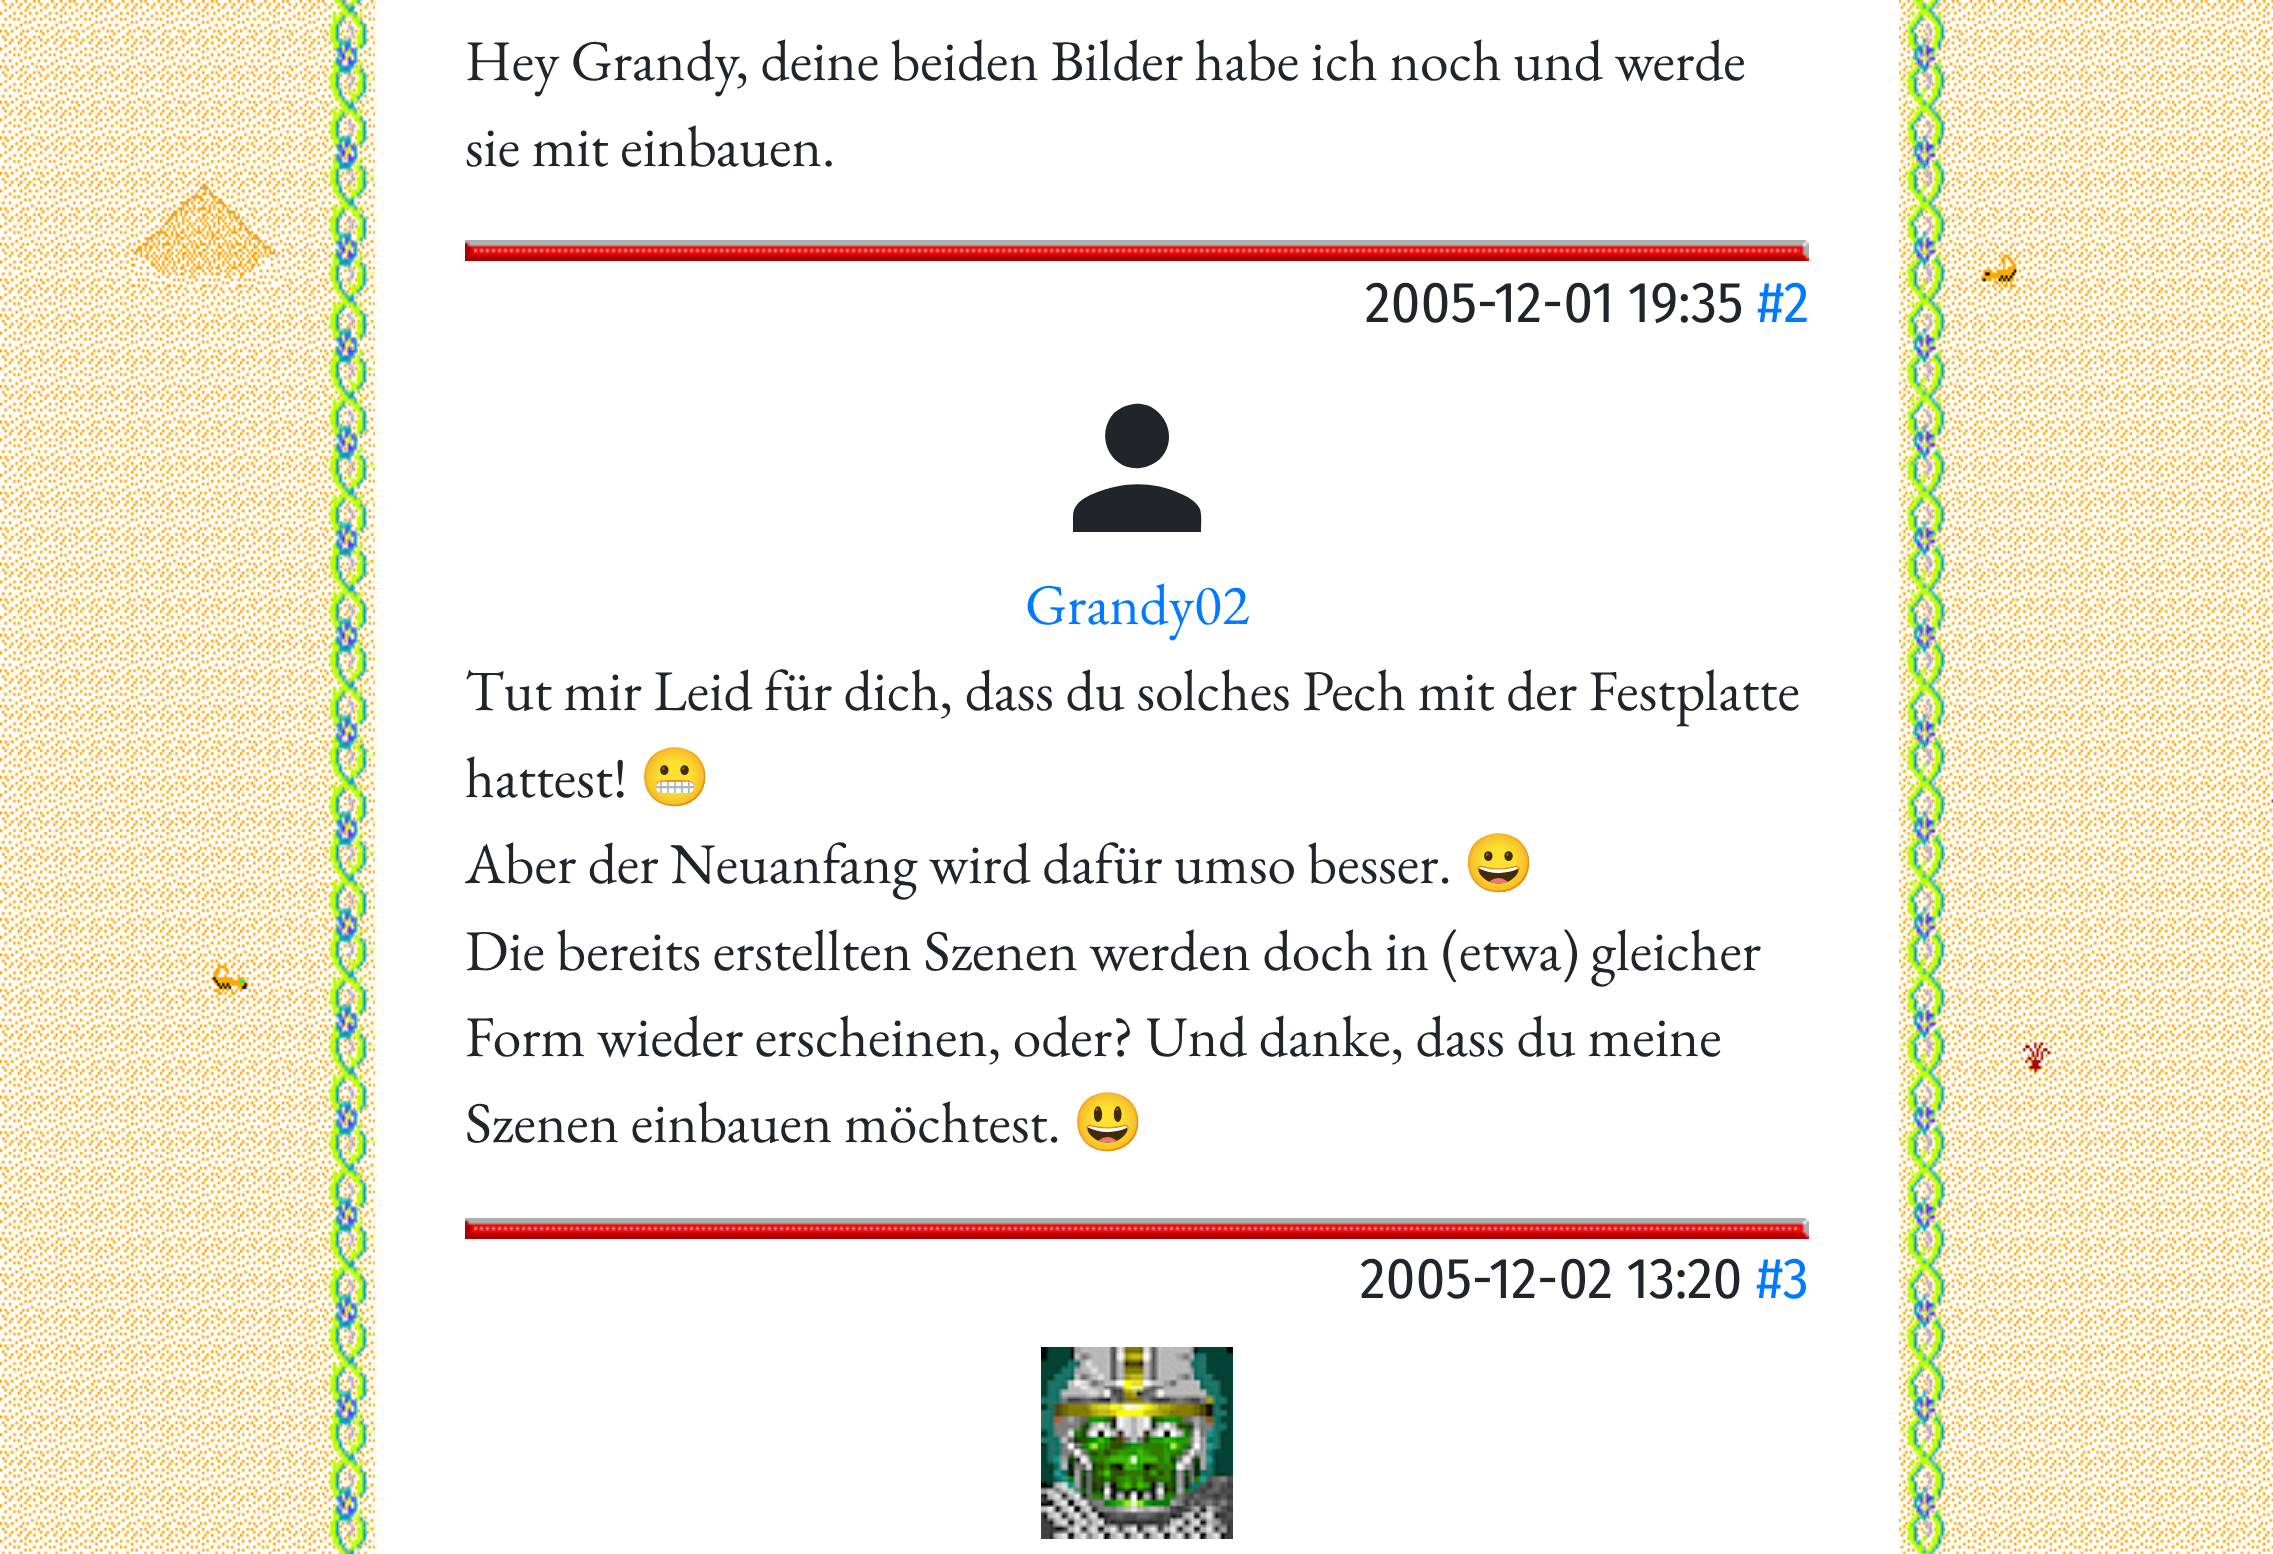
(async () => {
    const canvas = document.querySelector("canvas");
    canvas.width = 2273;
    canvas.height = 1554;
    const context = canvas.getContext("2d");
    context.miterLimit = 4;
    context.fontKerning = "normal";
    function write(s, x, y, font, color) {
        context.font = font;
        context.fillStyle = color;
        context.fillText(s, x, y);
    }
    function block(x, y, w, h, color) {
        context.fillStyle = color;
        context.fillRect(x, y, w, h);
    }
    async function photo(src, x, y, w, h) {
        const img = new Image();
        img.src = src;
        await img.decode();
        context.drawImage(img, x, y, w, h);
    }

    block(0, 0, 2273, 1554, "rgb(255, 255, 255)");
    await photo("media/1.png", 0, 0, 2273, 1554);
    block(375, 0, 1524, 1554, "rgb(255, 255, 255)");
    await photo("media/2.png", 329, 0, 1616, 1554);
    write("Hey Grandy, deine beiden Bilder habe ich noch und werde", 465, 80, "57.6px EB Garamond", "rgb(33, 37, 41)");
    write("sie mit einbauen.", 465, 166, "57.6px EB Garamond", "rgb(33, 37, 41)");
    await photo("media/3.png", 465, 240, 1335, 21);
    await photo("media/4.png", 465, 242, 9, 14);
    await photo("media/5.png", 1800, 240, 9, 21);
    write("2005-12-01 19:35", 1365, 322, "57.6px Fira Sans Condensed", "rgb(33, 37, 41)");
    write("#2", 1757, 322, "57.6px Fira Sans Condensed", "rgb(0, 123, 255)");
    context.fillStyle = "rgb(33, 37, 41)";
    context.beginPath();
    context.moveTo(1095, 493);
    context.bezierCurveTo(1123, 482, 1151, 481, 1179, 493);
    context.bezierCurveTo(1187, 496, 1196, 501, 1200, 509);
    context.bezierCurveTo(1202, 515, 1201, 525, 1201, 532);
    context.lineTo(1073, 532);
    context.lineTo(1073, 516);
    context.bezierCurveTo(1073, 506, 1080, 499, 1095, 493);
    context.closePath();
    context.moveTo(1160, 459);
    context.bezierCurveTo(1154, 464, 1148, 467, 1140, 468);
    context.bezierCurveTo(1110, 471, 1094, 435, 1114, 413);
    context.bezierCurveTo(1120, 408, 1126, 405, 1134, 404);
    context.bezierCurveTo(1163, 401, 1181, 438, 1160, 459);
    context.closePath();
    context.fill();
    write("Grandy02", 1025, 624, "57.6px EB Garamond", "rgb(0, 123, 255)");
    write("Tut mir Leid für dich, dass du solches Pech mit der Festplatte", 465, 710, "57.6px EB Garamond", "rgb(33, 37, 41)");
    write("hattest!", 465, 797, "57.6px EB Garamond", "rgb(33, 37, 41)");
    write("😬", 639, 797, "57.6px Noto Color Emoji", "rgb(33, 37, 41)");
    write("Aber der Neuanfang wird dafür umso besser.", 465, 883, "57.6px EB Garamond", "rgb(33, 37, 41)");
    write("😀", 1463, 883, "57.6px Noto Color Emoji", "rgb(33, 37, 41)");
    write("Die bereits erstellten Szenen werden doch in (etwa) gleicher", 465, 970, "57.6px EB Garamond", "rgb(33, 37, 41)");
    write("Form wieder erscheinen, oder? Und danke, dass du meine", 465, 1056, "57.6px EB Garamond", "rgb(33, 37, 41)");
    write("Szenen einbauen möchtest.", 465, 1142, "57.6px EB Garamond", "rgb(33, 37, 41)");
    write("😃", 1072, 1142, "57.6px Noto Color Emoji", "rgb(33, 37, 41)");
    await photo("media/3.png", 465, 1218, 1335, 21);
    await photo("media/4.png", 465, 1220, 9, 14);
    await photo("media/5.png", 1800, 1218, 9, 21);
    write("2005-12-02 13:20", 1360, 1298, "57.6px Fira Sans Condensed", "rgb(33, 37, 41)");
    write("#3", 1756, 1298, "57.6px Fira Sans Condensed", "rgb(0, 123, 255)");
    await photo("media/6.png", 1041, 1347, 192, 192);
})();
